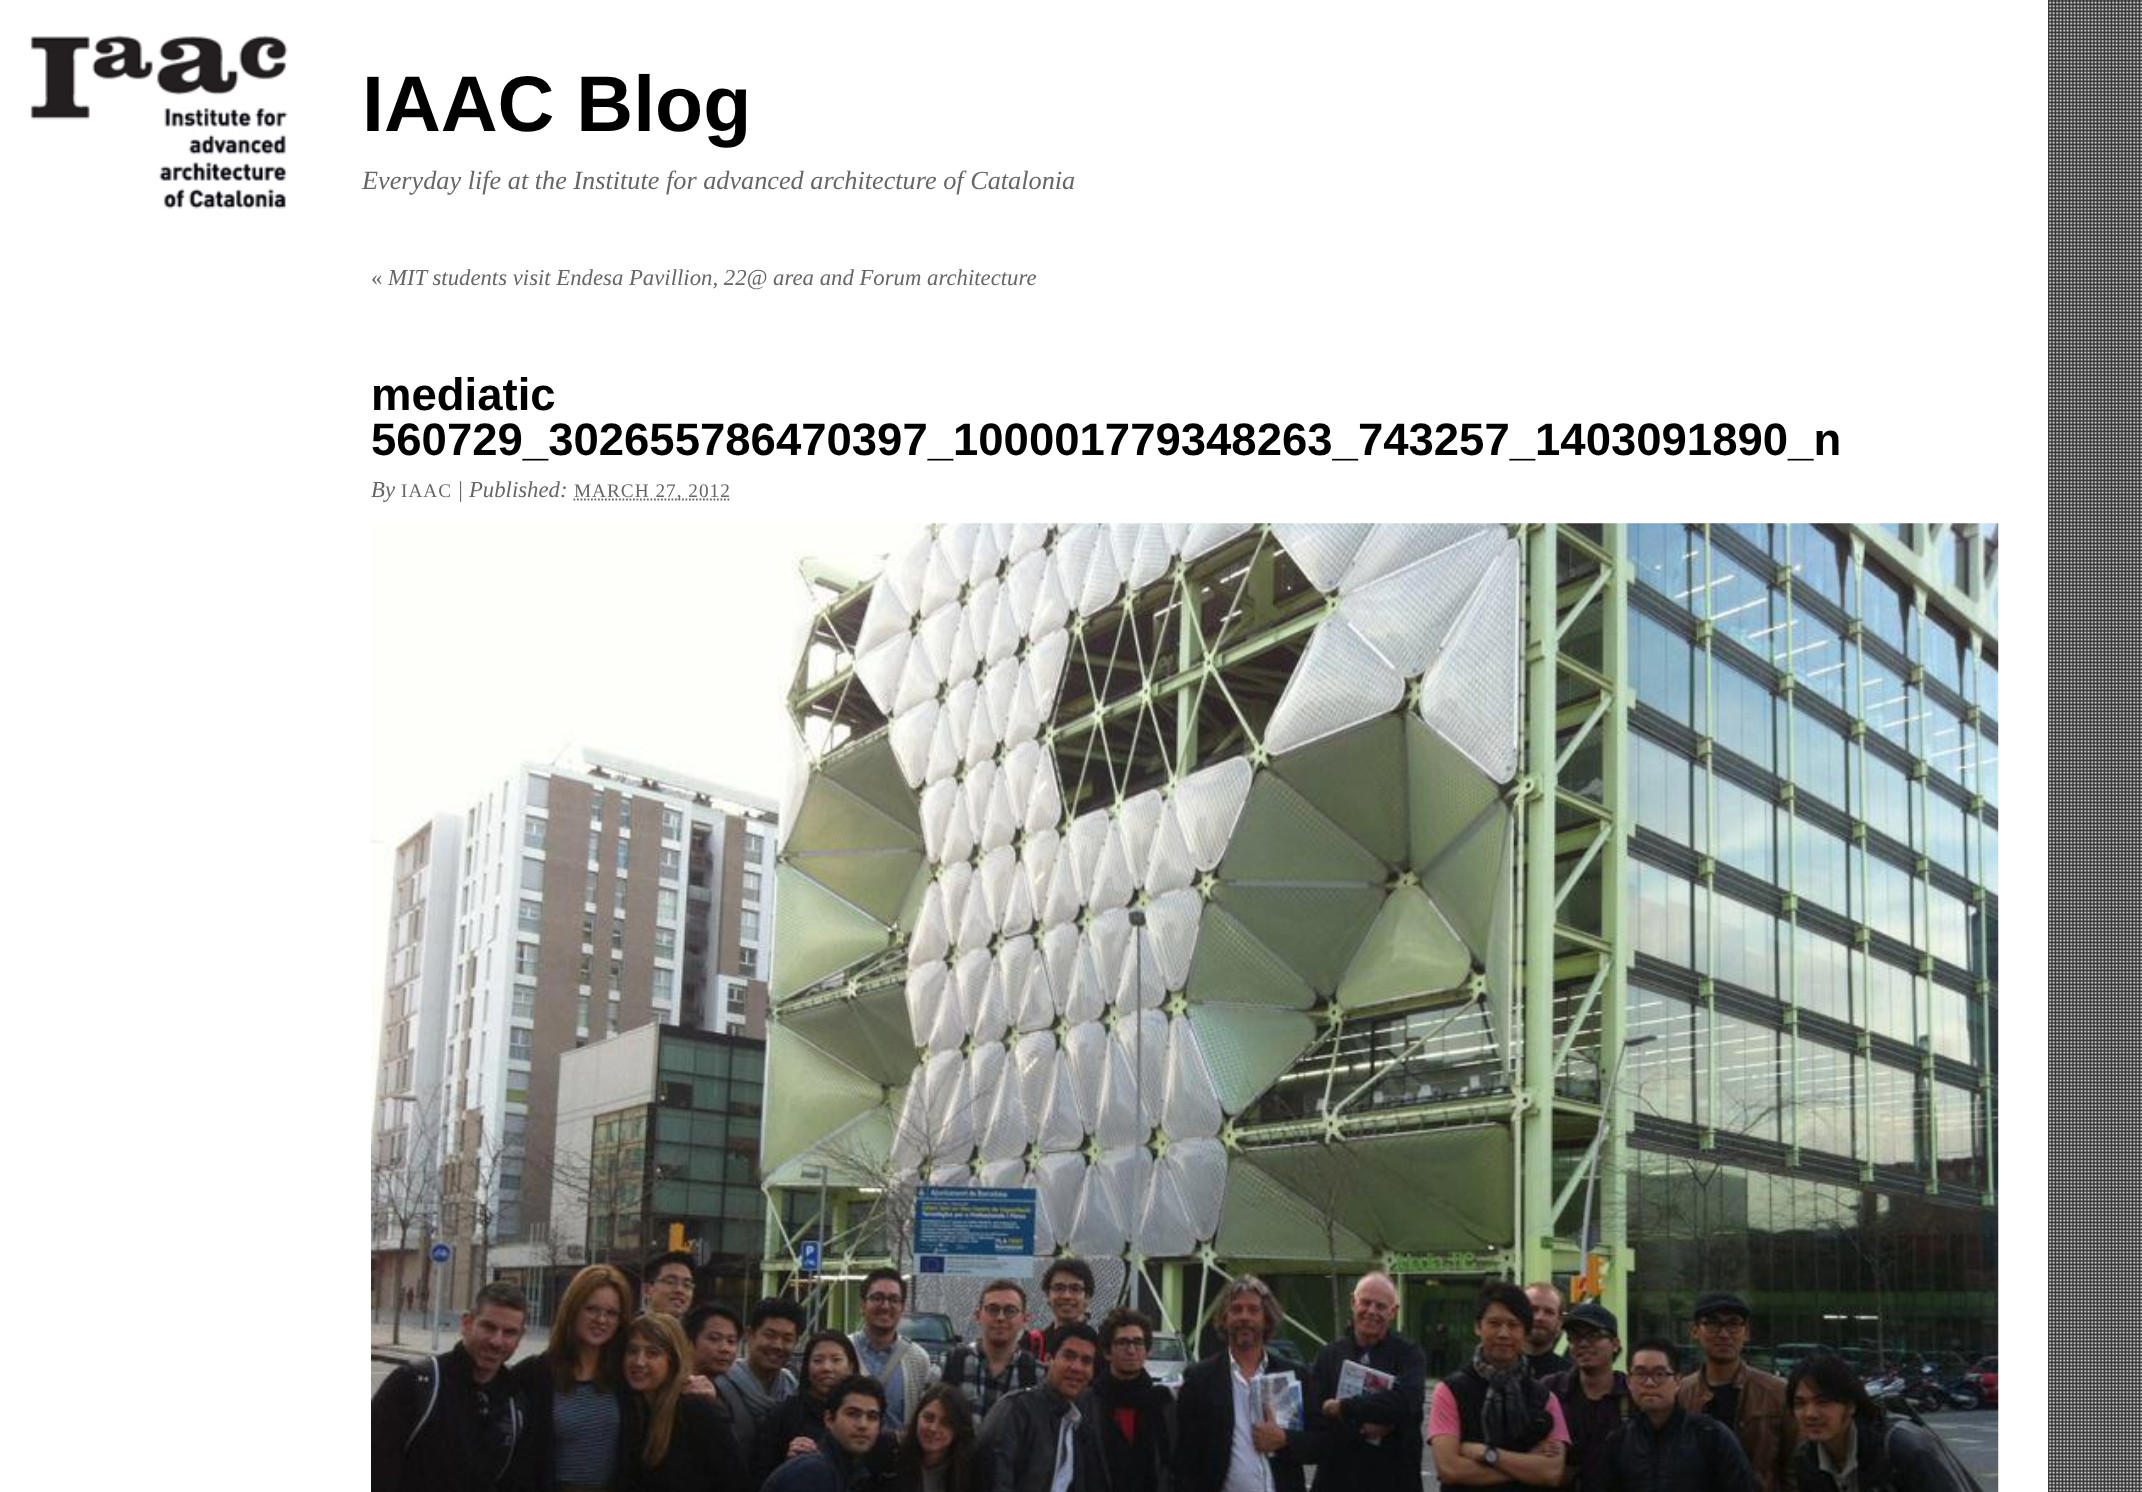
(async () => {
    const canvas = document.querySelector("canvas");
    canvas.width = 2142;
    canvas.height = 1492;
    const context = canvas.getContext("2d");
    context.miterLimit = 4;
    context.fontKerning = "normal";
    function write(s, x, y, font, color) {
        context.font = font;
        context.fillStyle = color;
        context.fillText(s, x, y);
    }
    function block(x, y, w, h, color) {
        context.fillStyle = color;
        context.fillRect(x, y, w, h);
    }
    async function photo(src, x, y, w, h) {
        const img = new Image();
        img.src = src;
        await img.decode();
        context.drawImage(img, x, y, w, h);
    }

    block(0, 0, 2142, 1492, "rgb(255, 255, 255)");
    await photo("media/1.png", 2048, 0, 94, 1492);
    await photo("media/2.png", 29, 35, 259, 174);
    write("IAAC Blog", 362, 131, "bold 78.75px Liberation Sans", "rgb(0, 0, 0)");
    write("Everyday life at the Institute for advanced architecture of Catalonia", 362, 189, "italic 26.25px Liberation Serif", "rgb(102, 102, 102)");
    write("«", 371, 285, "22.75px Liberation Serif", "rgb(102, 102, 102)");
    write("MIT students visit Endesa Pavillion, 22@ area and Forum architecture", 388, 285, "italic 22.75px Liberation Serif", "rgb(102, 102, 102)");
    write("mediatic", 371, 410, "bold 45.5px Liberation Sans", "rgb(0, 0, 0)");
    write("560729_302655786470397_100001779348263_743257_1403091890_n", 371, 455, "bold 45.5px Liberation Sans", "rgb(0, 0, 0)");
    write("By", 371, 497, "italic 22.75px Liberation Serif", "rgb(102, 102, 102)");
    context.letterSpacing = "1px";
    write("IAAC", 401, 497, "19.25px Liberation Serif", "rgb(102, 102, 102)");
    context.letterSpacing = "0px";
    write("| Published:", 457, 497, "italic 22.75px Liberation Serif", "rgb(102, 102, 102)");
    context.beginPath();
    context.moveTo(573.5, 499.5);
    context.lineTo(730, 499.5);
    context.strokeStyle = "rgb(102, 102, 102)";
    context.lineWidth = 1.8;
    context.setLineDash([1.75, 1.75]);
    context.stroke();
    context.letterSpacing = "1px";
    write("MARCH 27, 2012", 574, 497, "19.25px Liberation Serif", "rgb(102, 102, 102)");
    await photo("media/3.png", 371, 523, 1628, 969);
})();
